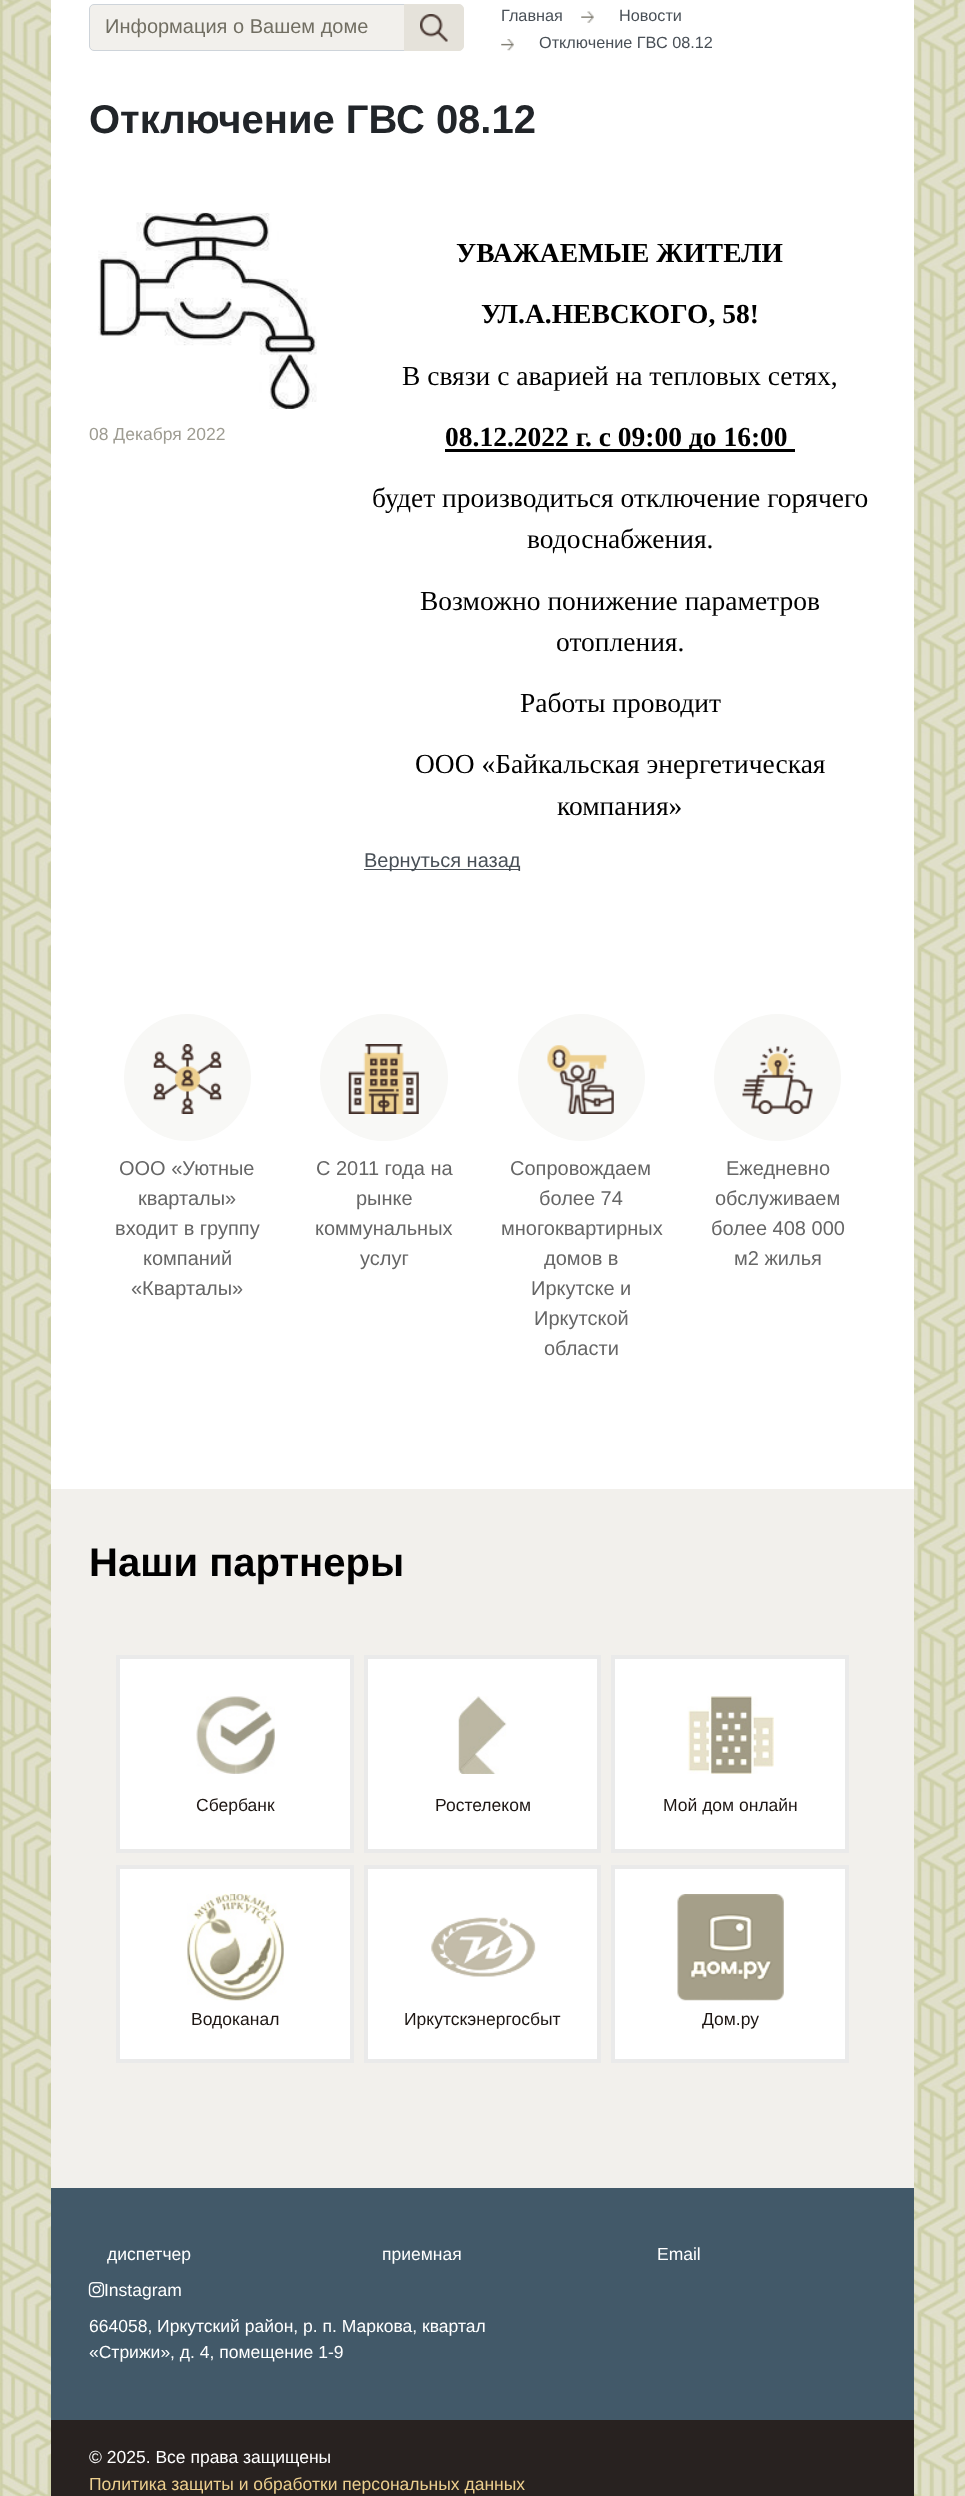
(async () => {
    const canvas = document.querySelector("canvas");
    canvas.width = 965;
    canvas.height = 2496;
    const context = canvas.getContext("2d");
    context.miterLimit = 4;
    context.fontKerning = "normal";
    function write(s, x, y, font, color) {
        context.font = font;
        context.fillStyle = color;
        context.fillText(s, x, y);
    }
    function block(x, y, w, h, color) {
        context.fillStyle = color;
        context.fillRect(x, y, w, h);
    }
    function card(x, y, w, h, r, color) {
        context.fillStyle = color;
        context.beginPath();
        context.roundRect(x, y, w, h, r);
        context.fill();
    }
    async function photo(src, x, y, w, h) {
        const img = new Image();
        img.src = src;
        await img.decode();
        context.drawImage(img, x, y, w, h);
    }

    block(0, 0, 965, 2496, "rgb(255, 255, 255)");
    await photo("media/1.png", 0, 0, 965, 2496);
    block(51, 0, 863, 1489, "rgb(255, 255, 255)");
    context.fillStyle = "rgb(242, 240, 236)";
    context.beginPath();
    context.roundRect(89.5, 4.5, 315, 46, [4.5, 0, 0, 4.5]);
    context.fill();
    context.strokeStyle = "rgb(206, 212, 218)";
    context.stroke();
    write("Информация о Вашем доме", 105, 33, "20px Liberation Sans", "rgb(113, 110, 98)");
    context.fillStyle = "rgb(229, 226, 218)";
    context.beginPath();
    context.roundRect(404.5, 4.5, 59, 46, [0, 4.5, 4.5, 0]);
    context.fill();
    context.strokeStyle = "rgb(229, 226, 218)";
    context.stroke();
    await photo("media/2.png", 420, 14, 28, 28);
    write("Главная", 501, 21, "16.25px Liberation Sans", "rgb(73, 80, 87)");
    await photo("media/3.png", 581, 11, 13, 12);
    write("Новости", 619, 21, "16.25px Liberation Sans", "rgb(73, 80, 87)");
    await photo("media/4.png", 501, 39, 13, 12);
    write("Отключение ГВС 08.12", 539, 48, "16.25px Liberation Sans", "rgb(73, 80, 87)");
    write("Отключение ГВС 08.12", 89, 133, "bold 40px Liberation Sans", "rgb(33, 37, 41)");
    await photo("media/5.png", 98, 212, 219, 197);
    write("08 Декабря 2022", 89, 440, "17.5px Liberation Sans", "rgb(158, 156, 146)");
    write("УВАЖАЕМЫЕ ЖИТЕЛИ", 456, 262, "bold 27.5px Liberation Serif", "rgb(0, 0, 0)");
    write("УЛ.А.НЕВСКОГО, 58!", 481, 323, "bold 27.5px Liberation Serif", "rgb(0, 0, 0)");
    write("В связи с аварией на тепловых сетях,", 402, 385, "27.5px Liberation Serif", "rgb(0, 0, 0)");
    block(445, 449, 350, 3, "rgb(0, 0, 0)");
    write("08.12.2022 г. с 09:00 до 16:00", 445, 446, "bold 27.5px Liberation Serif", "rgb(0, 0, 0)");
    write("будет производиться отключение горячего", 372, 507, "27.5px Liberation Serif", "rgb(0, 0, 0)");
    write("водоснабжения.", 527, 548, "27.5px Liberation Serif", "rgb(0, 0, 0)");
    write("Возможно понижение параметров", 420, 610, "27.5px Liberation Serif", "rgb(0, 0, 0)");
    write("отопления.", 556, 651, "27.5px Liberation Serif", "rgb(0, 0, 0)");
    write("Работы проводит", 520, 712, "27.5px Liberation Serif", "rgb(0, 0, 0)");
    write("ООО «Байкальская энергетическая", 415, 773, "27.5px Liberation Serif", "rgb(0, 0, 0)");
    write("компания»", 557, 815, "27.5px Liberation Serif", "rgb(0, 0, 0)");
    block(364, 869, 156, 1, "rgb(73, 80, 87)");
    write("Вернуться назад", 364, 867, "20px Liberation Sans", "rgb(73, 80, 87)");
    context.fillStyle = "rgb(248, 248, 246)";
    context.beginPath();
    context.arc(187.5, 1077.5, 63.5, 0, Math.PI * 2);
    context.fill();
    await photo("media/6.png", 153, 1044, 69, 70);
    write("ООО «Уютные", 119, 1175, "20px Liberation Sans", "rgb(102, 102, 102)");
    write("кварталы»", 138, 1205, "20px Liberation Sans", "rgb(102, 102, 102)");
    write("входит в группу", 115, 1235, "20px Liberation Sans", "rgb(102, 102, 102)");
    write("компаний", 143, 1265, "20px Liberation Sans", "rgb(102, 102, 102)");
    write("«Кварталы»", 131, 1295, "20px Liberation Sans", "rgb(102, 102, 102)");
    card(320, 1014, 128, 127, 63.5, "rgb(248, 248, 246)");
    await photo("media/7.png", 348, 1044, 71, 70);
    write("С 2011 года на", 316, 1175, "20px Liberation Sans", "rgb(102, 102, 102)");
    write("рынке", 356, 1205, "20px Liberation Sans", "rgb(102, 102, 102)");
    write("коммунальных", 315, 1235, "20px Liberation Sans", "rgb(102, 102, 102)");
    write("услуг", 360, 1265, "20px Liberation Sans", "rgb(102, 102, 102)");
    context.fillStyle = "rgb(248, 248, 246)";
    context.beginPath();
    context.arc(581.5, 1077.5, 63.5, 0, Math.PI * 2);
    context.fill();
    await photo("media/8.png", 547, 1045, 67, 69);
    write("Сопровождаем", 510, 1175, "20px Liberation Sans", "rgb(102, 102, 102)");
    write("более 74", 539, 1205, "20px Liberation Sans", "rgb(102, 102, 102)");
    write("многоквартирных", 501, 1235, "20px Liberation Sans", "rgb(102, 102, 102)");
    write("домов в", 544, 1265, "20px Liberation Sans", "rgb(102, 102, 102)");
    write("Иркутске и", 531, 1295, "20px Liberation Sans", "rgb(102, 102, 102)");
    write("Иркутской", 534, 1325, "20px Liberation Sans", "rgb(102, 102, 102)");
    write("области", 544, 1355, "20px Liberation Sans", "rgb(102, 102, 102)");
    context.fillStyle = "rgb(248, 248, 246)";
    context.beginPath();
    context.arc(777.5, 1077.5, 63.5, 0, Math.PI * 2);
    context.fill();
    await photo("media/9.png", 742, 1046, 71, 68);
    write("Ежедневно", 726, 1175, "20px Liberation Sans", "rgb(102, 102, 102)");
    write("обслуживаем", 715, 1205, "20px Liberation Sans", "rgb(102, 102, 102)");
    write("более 408 000", 711, 1235, "20px Liberation Sans", "rgb(102, 102, 102)");
    write("м2 жилья", 734, 1265, "20px Liberation Sans", "rgb(102, 102, 102)");
    block(51, 1489, 863, 699, "rgb(242, 240, 236)");
    write("Наши партнеры", 89, 1576, "bold 40px Liberation Sans", "rgb(0, 0, 0)");
    context.fillStyle = "rgb(255, 255, 255)";
    context.beginPath();
    context.rect(118, 1657, 234, 194);
    context.fill();
    context.strokeStyle = "rgb(234, 234, 234)";
    context.lineWidth = 4;
    context.stroke();
    await photo("media/10.png", 196, 1696, 79, 78);
    write("Сбербанк", 196, 1811, "17.5px Liberation Sans", "rgb(29, 22, 19)");
    context.fillStyle = "rgb(255, 255, 255)";
    context.beginPath();
    context.rect(366, 1657, 233, 194);
    context.fill();
    context.stroke();
    await photo("media/11.png", 458, 1696, 49, 78);
    write("Ростелеком", 435, 1811, "17.5px Liberation Sans", "rgb(29, 22, 19)");
    context.fillStyle = "rgb(255, 255, 255)";
    context.beginPath();
    context.rect(613, 1657, 234, 194);
    context.fill();
    context.stroke();
    await photo("media/12.png", 687, 1696, 87, 78);
    write("Мой дом онлайн", 663, 1811, "17.5px Liberation Sans", "rgb(29, 22, 19)");
    context.fillStyle = "rgb(255, 255, 255)";
    context.beginPath();
    context.rect(118, 1867, 234, 194);
    context.fill();
    context.stroke();
    await photo("media/13.png", 187, 1894, 97, 107);
    write("Водоканал", 191, 2025, "17.5px Liberation Sans", "rgb(29, 22, 19)");
    context.fillStyle = "rgb(255, 255, 255)";
    context.beginPath();
    context.rect(366, 1867, 233, 194);
    context.fill();
    context.stroke();
    await photo("media/14.png", 431, 1917, 105, 60);
    write("Иркутскэнергосбыт", 404, 2025, "17.5px Liberation Sans", "rgb(29, 22, 19)");
    context.fillStyle = "rgb(255, 255, 255)";
    context.beginPath();
    context.rect(613, 1867, 234, 194);
    context.fill();
    context.stroke();
    await photo("media/15.png", 677, 1894, 107, 107);
    write("Дом.ру", 702, 2025, "17.5px Liberation Sans", "rgb(29, 22, 19)");
    block(51, 2188, 863, 232, "rgb(66, 89, 105)");
    write("диспетчер", 107, 2260, "17.5px Liberation Sans", "rgb(255, 255, 255)");
    write("приемная", 382, 2260, "17.5px Liberation Sans", "rgb(255, 255, 255)");
    write("Email", 657, 2260, "17.5px Liberation Sans", "rgb(255, 255, 255)");
    await photo("media/16.png", 88, 2282, 17, 16);
    write("Instagram", 104, 2296, "17.5px Liberation Sans", "rgb(255, 255, 255)");
    write("664058, Иркутский район, р. п. Маркова, квартал", 89, 2332, "17.5px Liberation Sans", "rgb(255, 255, 255)");
    write("«Стрижи», д. 4, помещение 1-9", 89, 2358, "17.5px Liberation Sans", "rgb(255, 255, 255)");
    block(51, 2420, 863, 76, "rgb(40, 34, 32)");
    write("© 2025. Все права защищены", 89, 2463, "17.5px Liberation Sans", "rgb(255, 255, 255)");
    write("Политика защиты и обработки персональных данных", 89, 2490, "17.5px Liberation Sans", "rgb(236, 206, 142)");
})();
